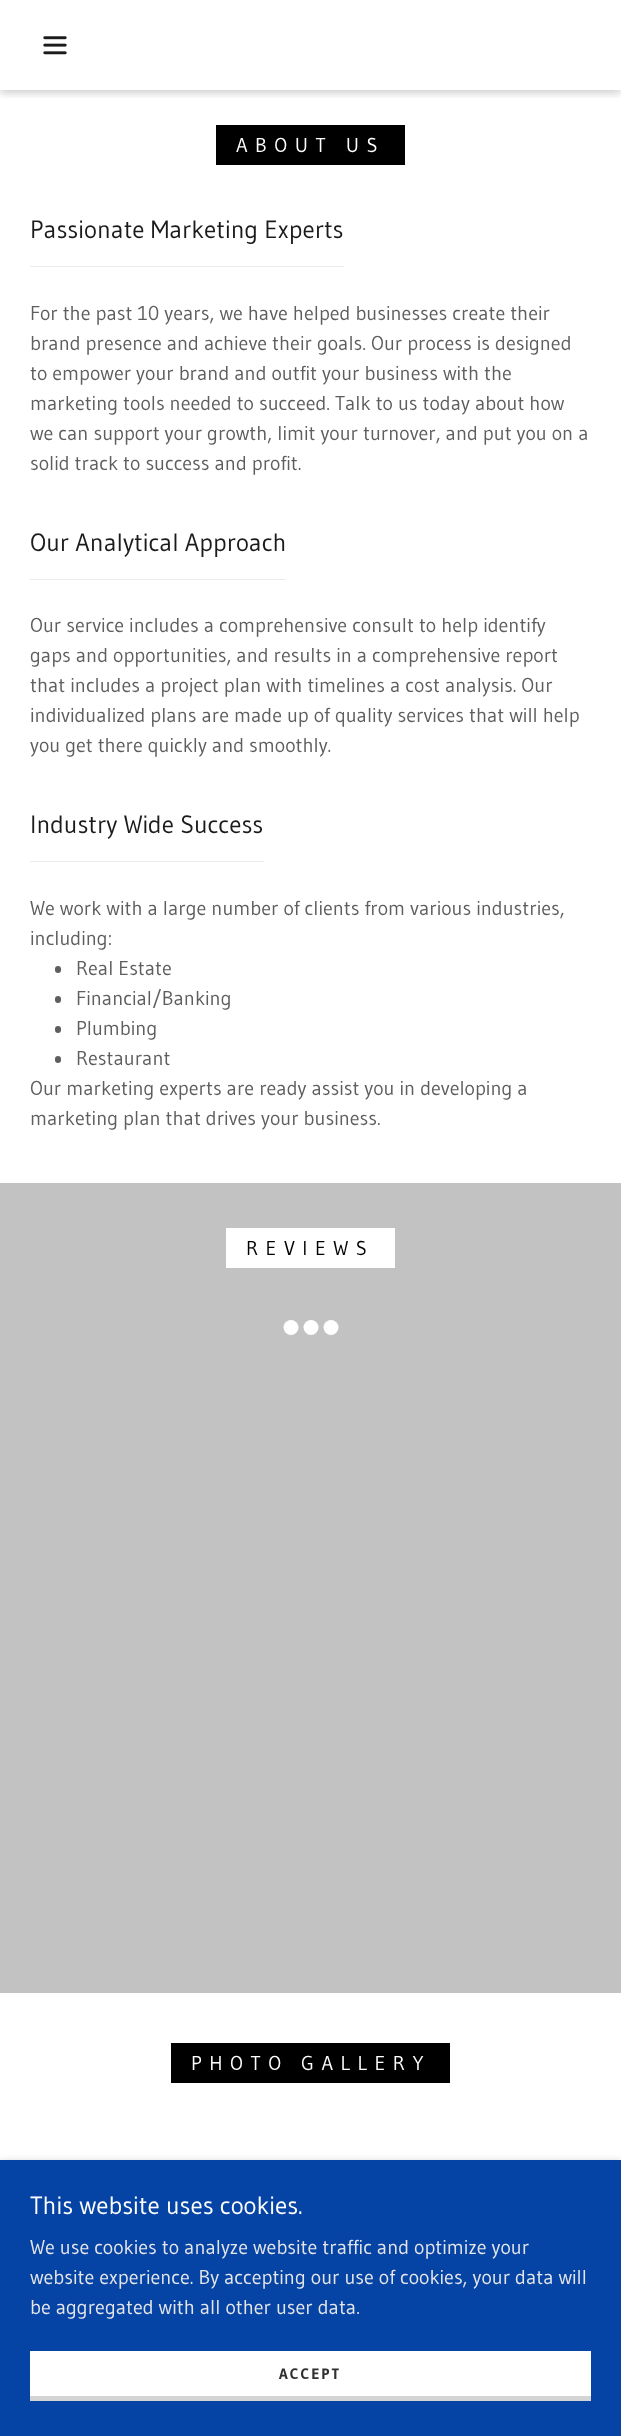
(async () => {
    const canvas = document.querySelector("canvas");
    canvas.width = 621;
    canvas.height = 2436;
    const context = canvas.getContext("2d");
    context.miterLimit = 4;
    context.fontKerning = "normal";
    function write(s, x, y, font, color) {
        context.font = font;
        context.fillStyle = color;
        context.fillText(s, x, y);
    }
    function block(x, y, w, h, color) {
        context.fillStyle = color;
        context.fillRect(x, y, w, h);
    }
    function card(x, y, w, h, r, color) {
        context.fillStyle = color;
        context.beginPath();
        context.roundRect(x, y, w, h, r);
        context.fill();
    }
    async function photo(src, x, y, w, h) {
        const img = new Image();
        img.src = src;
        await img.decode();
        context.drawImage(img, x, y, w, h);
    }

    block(0, 0, 621, 2436, "rgb(255, 255, 255)");
    context.save();
    context.beginPath();
    context.rect(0, 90, 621, 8);
    context.clip();
    context.fillStyle = "rgba(0, 0, 0, 0.2)";
    context.filter = "blur(4px)";
    context.beginPath();
    context.rect(0, 3, 621, 90);
    context.fill();
    context.filter = "none";
    context.restore();
    await photo("media/1.png", 43, 36, 24, 19);
    block(216, 125, 189, 40, "rgb(0, 0, 0)");
    context.letterSpacing = "7.5px";
    write("ABOUT US", 236, 152, "20px Gudea", "rgb(255, 255, 255)");
    block(30, 266, 314, 1, "rgb(235, 235, 235)");
    context.letterSpacing = "0px";
    write("Passionate Marketing Experts", 30, 238, "25px Gudea", "rgb(27, 27, 27)");
    write("For the past 10 years, we have helped businesses create their", 30, 320, "20px Gudea", "rgb(94, 94, 94)");
    write("brand presence and achieve their goals. Our process is designed", 30, 350, "20px Gudea", "rgb(94, 94, 94)");
    write("to empower your brand and outfit your business with the", 30, 380, "20px Gudea", "rgb(94, 94, 94)");
    write("marketing tools needed to succeed. Talk to us today about how", 30, 410, "20px Gudea", "rgb(94, 94, 94)");
    write("we can support your growth, limit your turnover, and put you on a", 30, 440, "20px Gudea", "rgb(94, 94, 94)");
    write("solid track to success and profit.", 30, 470, "20px Gudea", "rgb(94, 94, 94)");
    block(30, 579, 256, 1, "rgb(235, 235, 235)");
    write("Our Analytical Approach", 30, 551, "25px Gudea", "rgb(27, 27, 27)");
    write("Our service includes a comprehensive consult to help identify", 30, 632, "20px Gudea", "rgb(94, 94, 94)");
    write("gaps and opportunities, and results in a comprehensive report", 30, 662, "20px Gudea", "rgb(94, 94, 94)");
    write("that includes a project plan with timelines a cost analysis. Our", 30, 692, "20px Gudea", "rgb(94, 94, 94)");
    write("individualized plans are made up of quality services that will help", 30, 722, "20px Gudea", "rgb(94, 94, 94)");
    write("you get there quickly and smoothly.", 30, 752, "20px Gudea", "rgb(94, 94, 94)");
    block(30, 861, 234, 1, "rgb(235, 235, 235)");
    write("Industry Wide Success", 30, 833, "25px Gudea", "rgb(27, 27, 27)");
    write("We work with a large number of clients from various industries,", 30, 915, "20px Gudea", "rgb(94, 94, 94)");
    write("including:", 30, 945, "20px Gudea", "rgb(94, 94, 94)");
    card(55, 966, 6, 7, 3, "rgb(94, 94, 94)");
    write("Real Estate", 76, 975, "20px Gudea", "rgb(94, 94, 94)");
    card(55, 996, 6, 7, 3, "rgb(94, 94, 94)");
    write("Financial/Banking", 76, 1005, "20px Gudea", "rgb(94, 94, 94)");
    card(55, 1026, 6, 7, 3, "rgb(94, 94, 94)");
    write("Plumbing", 76, 1035, "20px Gudea", "rgb(94, 94, 94)");
    card(55, 1056, 6, 7, 3, "rgb(94, 94, 94)");
    write("Restaurant", 76, 1065, "20px Gudea", "rgb(94, 94, 94)");
    write("Our marketing experts are ready assist you in developing a", 30, 1095, "20px Gudea", "rgb(94, 94, 94)");
    write("marketing plan that drives your business.", 30, 1125, "20px Gudea", "rgb(94, 94, 94)");
    block(0, 1183, 621, 810, "rgb(194, 194, 194)");
    block(226, 1228, 169, 40, "rgb(255, 255, 255)");
    context.letterSpacing = "7.5px";
    write("REVIEWS", 246, 1255, "20px Gudea", "rgb(0, 0, 0)");
    context.fillStyle = "rgb(255, 255, 255)";
    context.beginPath();
    context.arc(291, 1327.5, 7.5, 0, Math.PI * 2);
    context.fill();
    context.beginPath();
    context.arc(311, 1327.5, 7.5, 0, Math.PI * 2);
    context.fill();
    context.beginPath();
    context.arc(331, 1327.5, 7.5, 0, Math.PI * 2);
    context.fill();
    block(171, 2043, 279, 40, "rgb(0, 0, 0)");
    write("PHOTO GALLERY", 191, 2070, "20px Gudea", "rgb(255, 255, 255)");
    context.fillStyle = "rgba(0, 0, 0, 0.3)";
    context.filter = "blur(4px)";
    context.beginPath();
    context.rect(0, 2163, 621, 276);
    context.fill();
    context.filter = "none";
    block(0, 2160, 621, 276, "rgb(5, 68, 164)");
    context.letterSpacing = "0px";
    write("This website uses cookies.", 30, 2214, "25px Gudea", "rgb(255, 255, 255)");
    write("We use cookies to analyze website traffic and optimize your", 30, 2254, "20px Gudea", "rgb(230, 230, 234)");
    write("website experience. By accepting our use of cookies, your data will", 30, 2284, "20px Gudea", "rgb(230, 230, 234)");
    write("be aggregated with all other user data.", 30, 2314, "20px Gudea", "rgb(230, 230, 234)");
    block(30, 2351, 561, 45, "rgb(255, 255, 255)");
    block(30, 2396, 561, 5, "rgb(212, 212, 212)");
    context.letterSpacing = "2px";
    write("ACCEPT", 279, 2379, "bold 15px Gudea", "rgb(48, 48, 48)");
})();
